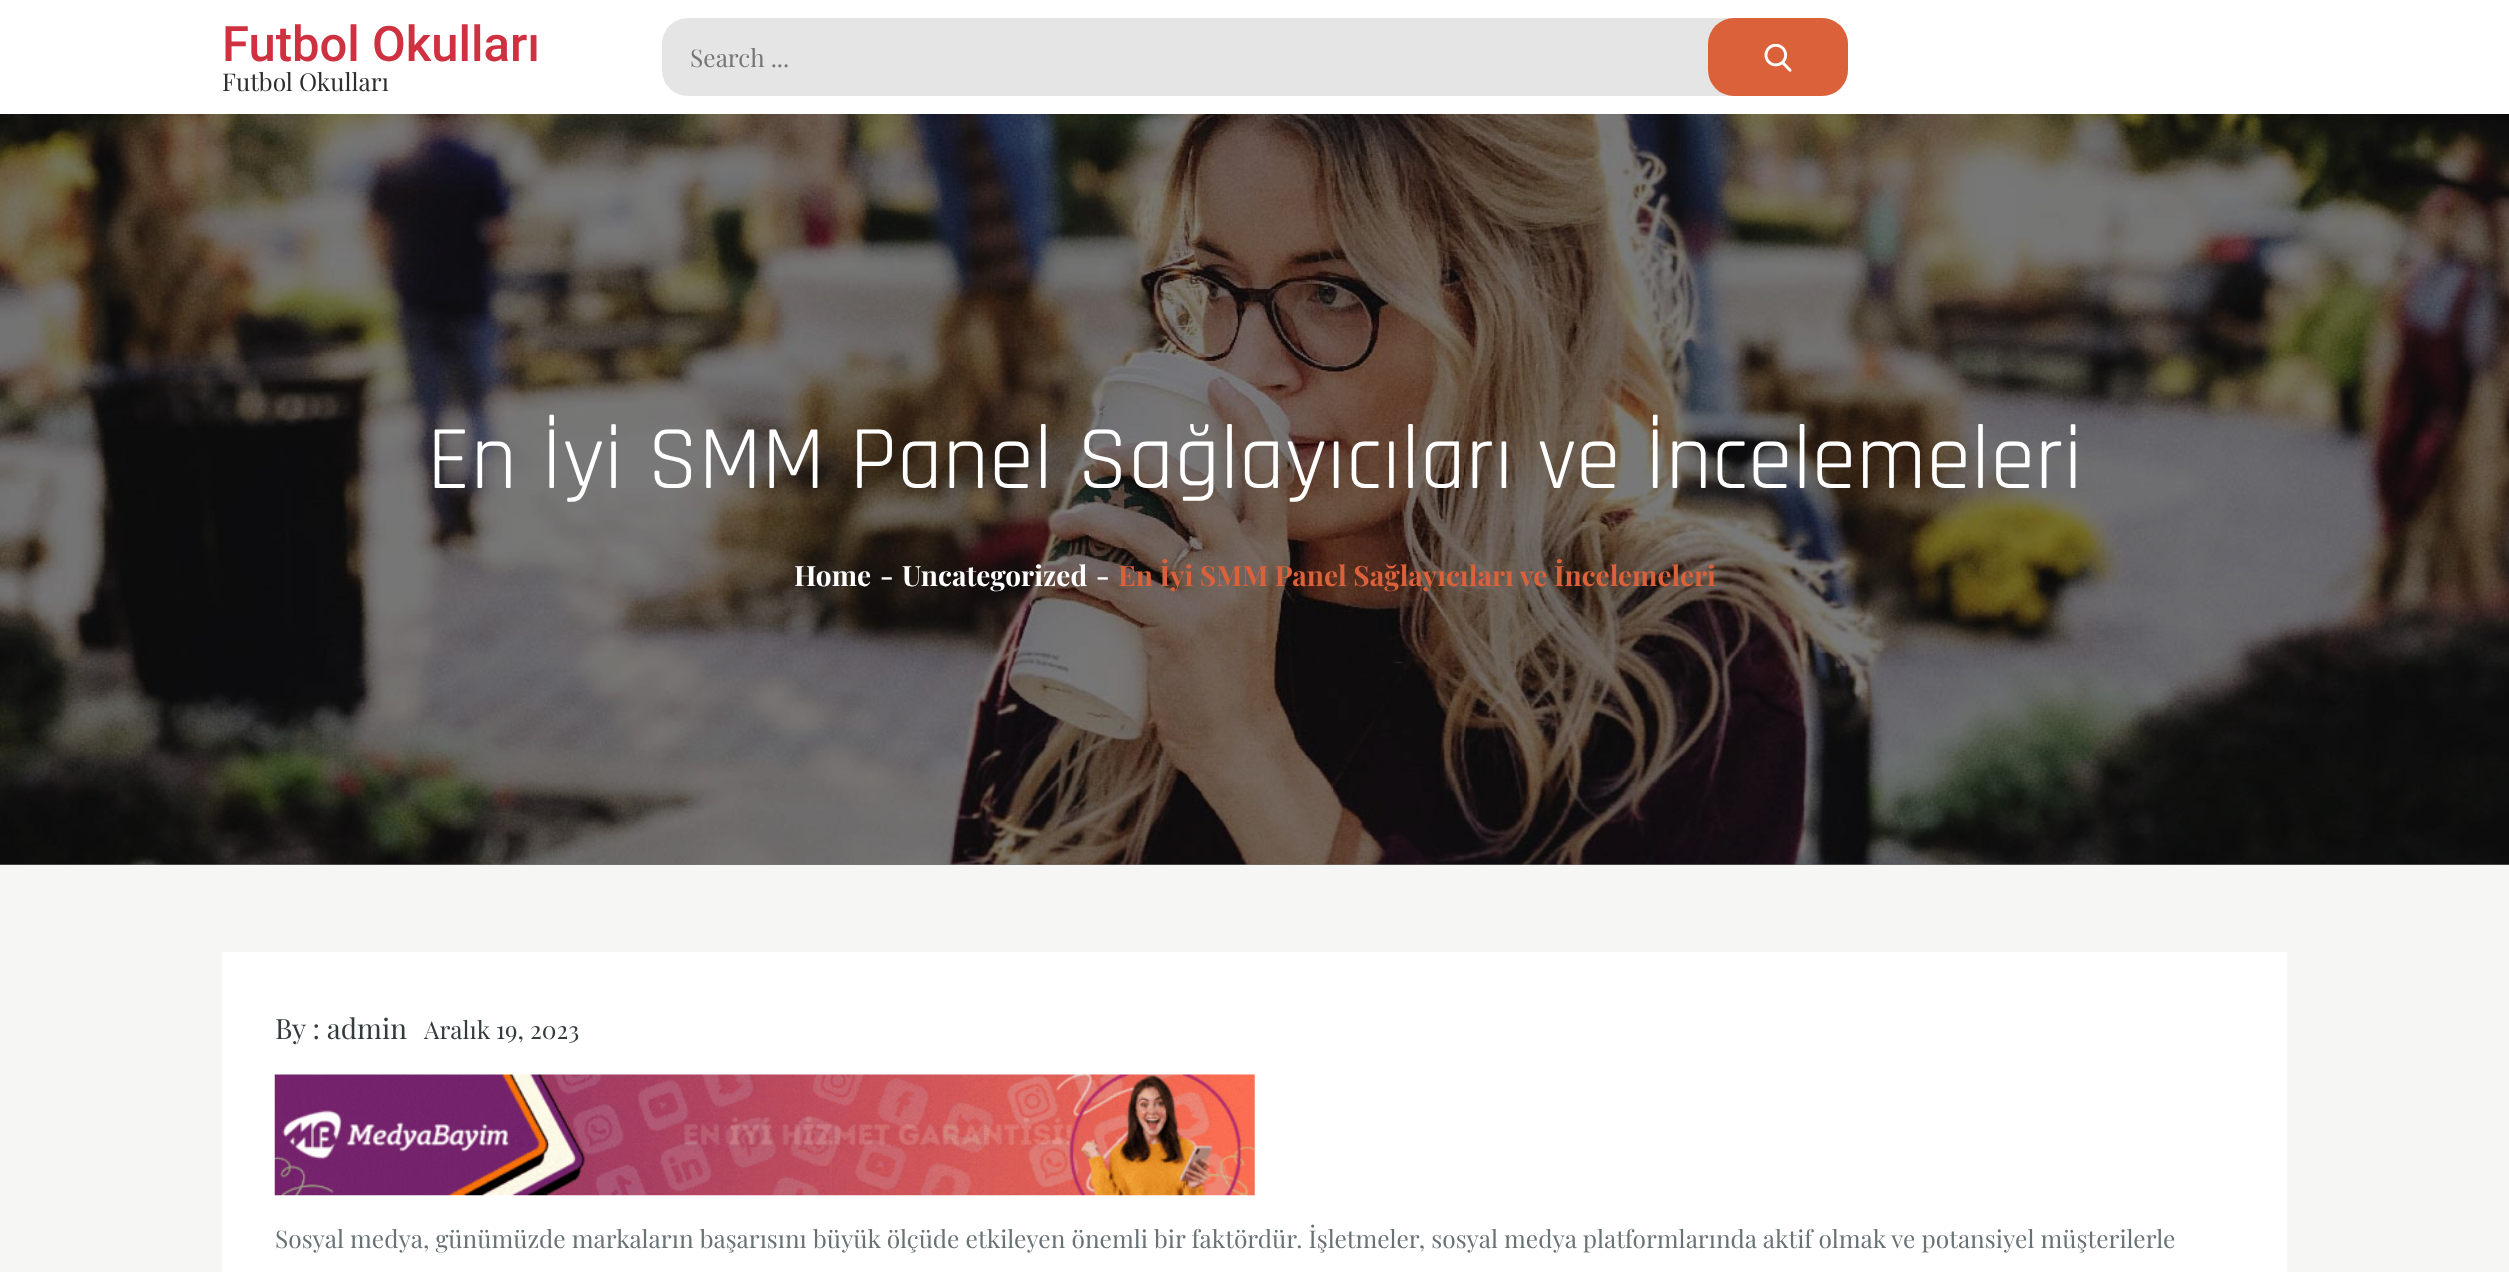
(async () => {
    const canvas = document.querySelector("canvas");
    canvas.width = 2509;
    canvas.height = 1272;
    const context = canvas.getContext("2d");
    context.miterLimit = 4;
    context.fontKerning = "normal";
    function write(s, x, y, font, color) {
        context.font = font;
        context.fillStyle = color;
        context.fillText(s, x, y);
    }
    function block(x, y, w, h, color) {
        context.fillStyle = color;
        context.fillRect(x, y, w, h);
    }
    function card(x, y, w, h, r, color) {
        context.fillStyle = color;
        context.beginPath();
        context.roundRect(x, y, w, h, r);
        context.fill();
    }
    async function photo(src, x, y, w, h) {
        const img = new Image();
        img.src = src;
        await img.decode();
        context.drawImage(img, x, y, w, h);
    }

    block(0, 0, 2509, 1272, "rgb(246, 246, 244)");
    block(0, 0, 2509, 114, "rgb(255, 255, 255)");
    write("Futbol Okulları", 222, 61, "500 49px Roboto", "rgb(207, 49, 64)");
    write("Futbol Okulları", 222, 91, "24.5px Playfair Display", "rgb(46, 46, 46)");
    card(662, 18, 1186, 78, 26, "rgb(229, 229, 229)");
    write("Search ...", 690, 67, "24.5px Playfair Display", "rgb(117, 117, 117)");
    card(1708, 18, 140, 78, 26, "rgb(219, 97, 59)");
    await photo("media/1.png", 1764, 44, 28, 28);
    block(0, 864, 2509, 1, "rgb(123, 123, 123)");
    await photo("media/2.png", 0, 114, 2509, 751);
    write("En İyi SMM Panel Sağlayıcıları ve İncelemeleri", 427, 488, "91px Rajdhani", "rgb(255, 255, 255)");
    write("Home", 794, 586, "bold 28px Playfair Display", "rgb(255, 255, 255)");
    write("-", 880, 586, "bold 28px Playfair Display", "rgb(255, 255, 255)");
    write("Uncategorized", 902, 586, "bold 28px Playfair Display", "rgb(255, 255, 255)");
    write("-", 1096, 586, "bold 28px Playfair Display", "rgb(255, 255, 255)");
    write("En İyi SMM Panel Sağlayıcıları ve İncelemeleri", 1118, 586, "bold 28px Playfair Display", "rgb(219, 97, 59)");
    block(222, 952, 2065, 320, "rgb(255, 255, 255)");
    write("By : admin", 275, 1039, "28px Playfair Display", "rgb(52, 59, 61)");
    write("Aralık 19, 2023", 424, 1039, "24.5px Playfair Display", "rgb(52, 59, 61)");
    await photo("media/3.png", 274, 1074, 981, 122);
    write("Sosyal medya, günümüzde markaların başarısını büyük ölçüde etkileyen önemli bir faktördür. İşletmeler, sosyal medya platformlarında aktif olmak ve potansiyel müşterilerle", 275, 1248, "24.5px Playfair Display", "rgb(105, 114, 117)");
})();
